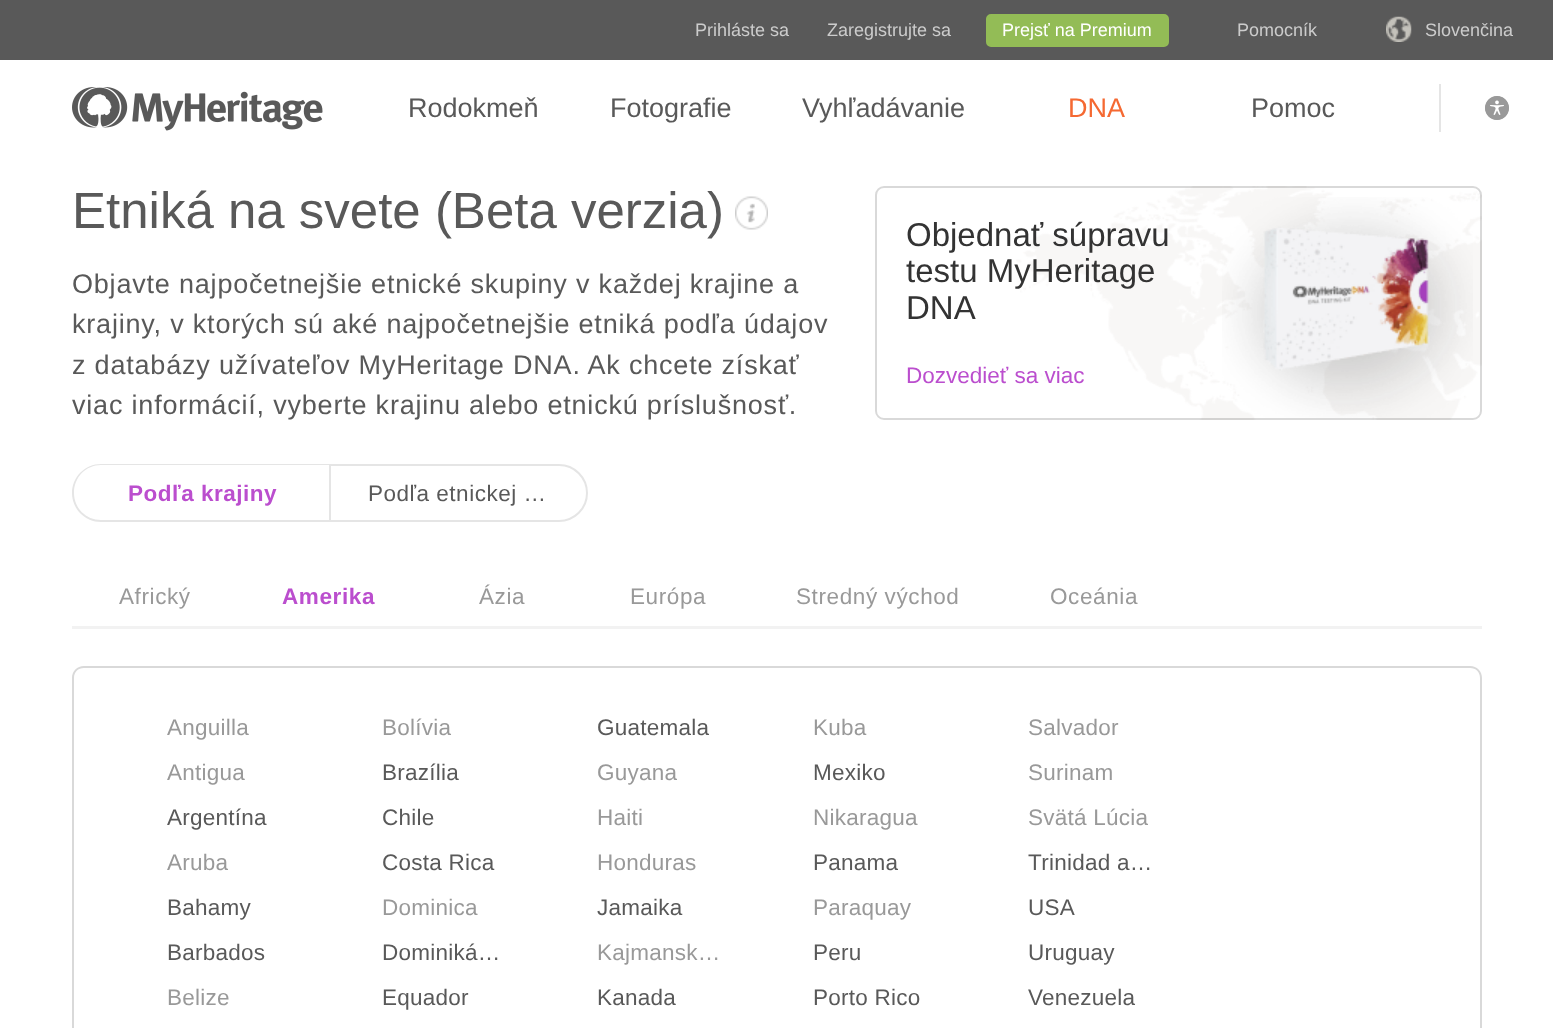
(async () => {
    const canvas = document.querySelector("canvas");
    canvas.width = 1553;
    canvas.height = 1028;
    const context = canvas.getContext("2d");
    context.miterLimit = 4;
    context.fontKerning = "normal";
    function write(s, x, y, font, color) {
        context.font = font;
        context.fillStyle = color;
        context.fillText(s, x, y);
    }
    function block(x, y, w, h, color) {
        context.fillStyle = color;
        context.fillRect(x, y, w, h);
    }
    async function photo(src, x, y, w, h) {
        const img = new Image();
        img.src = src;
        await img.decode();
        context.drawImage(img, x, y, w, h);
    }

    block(0, 0, 1553, 1028, "rgb(255, 255, 255)");
    block(0, 0, 1553, 60, "rgb(89, 89, 89)");
    write("Prihláste sa", 695, 36, "18px Liberation Sans", "rgb(204, 204, 204)");
    write("Zaregistrujte sa", 827, 36, "18px Liberation Sans", "rgb(204, 204, 204)");
    context.fillStyle = "rgb(147, 188, 86)";
    context.beginPath();
    context.roundRect(987, 15, 181, 31, 4);
    context.fill();
    context.strokeStyle = "rgb(147, 188, 86)";
    context.lineWidth = 2;
    context.stroke();
    write("Prejsť na Premium", 1002, 36, "18px Liberation Sans", "rgb(255, 255, 255)");
    write("Pomocník", 1237, 36, "18px Liberation Sans", "rgb(204, 204, 204)");
    await photo("media/1.png", 1386, 16, 26, 26);
    write("Slovenčina", 1425, 36, "18px Liberation Sans", "rgb(204, 204, 204)");
    await photo("media/2.png", 72, 87, 251, 44);
    write("Rodokmeň", 408, 117, "27px Liberation Sans", "rgb(89, 89, 89)");
    write("Fotografie", 610, 117, "27px Liberation Sans", "rgb(89, 89, 89)");
    write("Vyhľadávanie", 802, 117, "27px Liberation Sans", "rgb(89, 89, 89)");
    write("DNA", 1068, 117, "27px Liberation Sans", "rgb(245, 105, 50)");
    write("Pomoc", 1251, 117, "27px Liberation Sans", "rgb(89, 89, 89)");
    block(1439, 84, 2, 48, "rgb(229, 229, 229)");
    await photo("media/3.png", 1485, 96, 24, 24);
    await photo("media/4.png", 1485, 96, 24, 24);
    write("Etniká na svete (Beta verzia)", 72, 228, "51px Liberation Sans", "rgb(89, 89, 89)");
    await photo("media/5.png", 735, 196, 33, 34);
    context.letterSpacing = "0.8px";
    write("Objavte najpočetnejšie etnické skupiny v každej krajine a", 72, 293, "27px Liberation Sans", "rgb(89, 89, 89)");
    write("krajiny, v ktorých sú aké najpočetnejšie etniká podľa údajov", 72, 333, "27px Liberation Sans", "rgb(89, 89, 89)");
    write("z databázy užívateľov MyHeritage DNA. Ak chcete získať", 72, 374, "27px Liberation Sans", "rgb(89, 89, 89)");
    write("viac informácií, vyberte krajinu alebo etnickú príslušnosť.", 72, 414, "27px Liberation Sans", "rgb(89, 89, 89)");
    context.fillStyle = "rgb(229, 229, 229)";
    context.beginPath();
    context.moveTo(101, 464);
    context.lineTo(330, 464);
    context.lineTo(330, 522);
    context.lineTo(101, 522);
    context.bezierCurveTo(85, 522, 72, 509, 72, 493);
    context.bezierCurveTo(72, 477, 85, 464, 101, 464);
    context.closePath();
    context.moveTo(101, 465);
    context.lineTo(330, 465);
    context.lineTo(330, 520);
    context.lineTo(101, 520);
    context.bezierCurveTo(86, 520, 74, 508, 74, 493);
    context.bezierCurveTo(74, 477, 86, 465, 101, 465);
    context.closePath();
    context.fill("evenodd");
    context.letterSpacing = "0.5px";
    write("Podľa krajiny", 128, 501, "bold 22.5px Liberation Sans", "rgb(187, 78, 206)");
    context.fillStyle = "rgb(255, 255, 255)";
    context.beginPath();
    context.roundRect(330, 465, 257, 56, [0, 28, 28, 0]);
    context.fill();
    context.strokeStyle = "rgb(229, 229, 229)";
    context.stroke();
    write("Podľa etnickej …", 368, 501, "22.5px Liberation Sans", "rgb(89, 89, 89)");
    await photo("media/6.png", 1016, 186, 466, 234);
    context.beginPath();
    context.roundRect(876, 187, 605, 232, 8);
    context.strokeStyle = "rgba(0, 0, 0, 0.15)";
    context.stroke();
    context.letterSpacing = "0px";
    write("Objednať súpravu", 906, 246, "33px Liberation Sans", "rgb(51, 51, 51)");
    write("testu MyHeritage", 906, 282, "33px Liberation Sans", "rgb(51, 51, 51)");
    write("DNA", 906, 319, "33px Liberation Sans", "rgb(51, 51, 51)");
    write("Dozvedieť sa viac", 906, 383, "22.5px Liberation Sans", "rgb(187, 78, 206)");
    await photo("media/7.png", 1222, 197, 251, 221);
    block(72, 626, 1410, 3, "rgb(242, 242, 242)");
    context.letterSpacing = "0.6px";
    write("Africký", 119, 604, "22.5px Liberation Sans", "rgb(153, 153, 153)");
    write("Amerika", 282, 604, "bold 22.5px Liberation Sans", "rgb(187, 78, 206)");
    write("Ázia", 479, 604, "22.5px Liberation Sans", "rgb(153, 153, 153)");
    write("Európa", 630, 604, "22.5px Liberation Sans", "rgb(153, 153, 153)");
    write("Stredný východ", 796, 604, "22.5px Liberation Sans", "rgb(153, 153, 153)");
    write("Oceánia", 1050, 604, "22.5px Liberation Sans", "rgb(153, 153, 153)");
    context.fillStyle = "rgb(217, 217, 217)";
    context.beginPath();
    context.moveTo(84, 666);
    context.lineTo(1470, 666);
    context.bezierCurveTo(1477, 666, 1482, 671, 1482, 678);
    context.lineTo(1482, 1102);
    context.lineTo(72, 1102);
    context.lineTo(72, 678);
    context.bezierCurveTo(72, 671, 77, 666, 84, 666);
    context.closePath();
    context.moveTo(84, 668);
    context.lineTo(1470, 668);
    context.bezierCurveTo(1476, 668, 1480, 672, 1480, 678);
    context.lineTo(1480, 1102);
    context.lineTo(74, 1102);
    context.lineTo(74, 678);
    context.bezierCurveTo(74, 672, 78, 668, 84, 668);
    context.closePath();
    context.fill("evenodd");
    context.letterSpacing = "0.25px";
    write("Anguilla", 167, 735, "22.5px Liberation Sans", "rgb(153, 153, 153)");
    write("Antigua", 167, 780, "22.5px Liberation Sans", "rgb(153, 153, 153)");
    write("Argentína", 167, 825, "22.5px Liberation Sans", "rgb(89, 89, 89)");
    write("Aruba", 167, 870, "22.5px Liberation Sans", "rgb(153, 153, 153)");
    write("Bahamy", 167, 915, "22.5px Liberation Sans", "rgb(89, 89, 89)");
    write("Barbados", 167, 960, "22.5px Liberation Sans", "rgb(89, 89, 89)");
    write("Belize", 167, 1005, "22.5px Liberation Sans", "rgb(153, 153, 153)");
    write("Bolívia", 382, 735, "22.5px Liberation Sans", "rgb(153, 153, 153)");
    write("Brazília", 382, 780, "22.5px Liberation Sans", "rgb(89, 89, 89)");
    write("Chile", 382, 825, "22.5px Liberation Sans", "rgb(89, 89, 89)");
    write("Costa Rica", 382, 870, "22.5px Liberation Sans", "rgb(89, 89, 89)");
    write("Dominica", 382, 915, "22.5px Liberation Sans", "rgb(153, 153, 153)");
    write("Dominiká…", 382, 960, "22.5px Liberation Sans", "rgb(89, 89, 89)");
    write("Equador", 382, 1005, "22.5px Liberation Sans", "rgb(89, 89, 89)");
    write("Guatemala", 597, 735, "22.5px Liberation Sans", "rgb(89, 89, 89)");
    write("Guyana", 597, 780, "22.5px Liberation Sans", "rgb(153, 153, 153)");
    write("Haiti", 597, 825, "22.5px Liberation Sans", "rgb(153, 153, 153)");
    write("Honduras", 597, 870, "22.5px Liberation Sans", "rgb(153, 153, 153)");
    write("Jamaika", 597, 915, "22.5px Liberation Sans", "rgb(89, 89, 89)");
    write("Kajmansk…", 597, 960, "22.5px Liberation Sans", "rgb(153, 153, 153)");
    write("Kanada", 597, 1005, "22.5px Liberation Sans", "rgb(89, 89, 89)");
    write("Kuba", 813, 735, "22.5px Liberation Sans", "rgb(153, 153, 153)");
    write("Mexiko", 813, 780, "22.5px Liberation Sans", "rgb(89, 89, 89)");
    write("Nikaragua", 813, 825, "22.5px Liberation Sans", "rgb(153, 153, 153)");
    write("Panama", 813, 870, "22.5px Liberation Sans", "rgb(89, 89, 89)");
    write("Paraquay", 813, 915, "22.5px Liberation Sans", "rgb(153, 153, 153)");
    write("Peru", 813, 960, "22.5px Liberation Sans", "rgb(89, 89, 89)");
    write("Porto Rico", 813, 1005, "22.5px Liberation Sans", "rgb(89, 89, 89)");
    write("Salvador", 1028, 735, "22.5px Liberation Sans", "rgb(153, 153, 153)");
    write("Surinam", 1028, 780, "22.5px Liberation Sans", "rgb(153, 153, 153)");
    write("Svätá Lúcia", 1028, 825, "22.5px Liberation Sans", "rgb(153, 153, 153)");
    write("Trinidad a…", 1028, 870, "22.5px Liberation Sans", "rgb(89, 89, 89)");
    write("USA", 1028, 915, "22.5px Liberation Sans", "rgb(89, 89, 89)");
    write("Uruguay", 1028, 960, "22.5px Liberation Sans", "rgb(89, 89, 89)");
    write("Venezuela", 1028, 1005, "22.5px Liberation Sans", "rgb(89, 89, 89)");
})();
